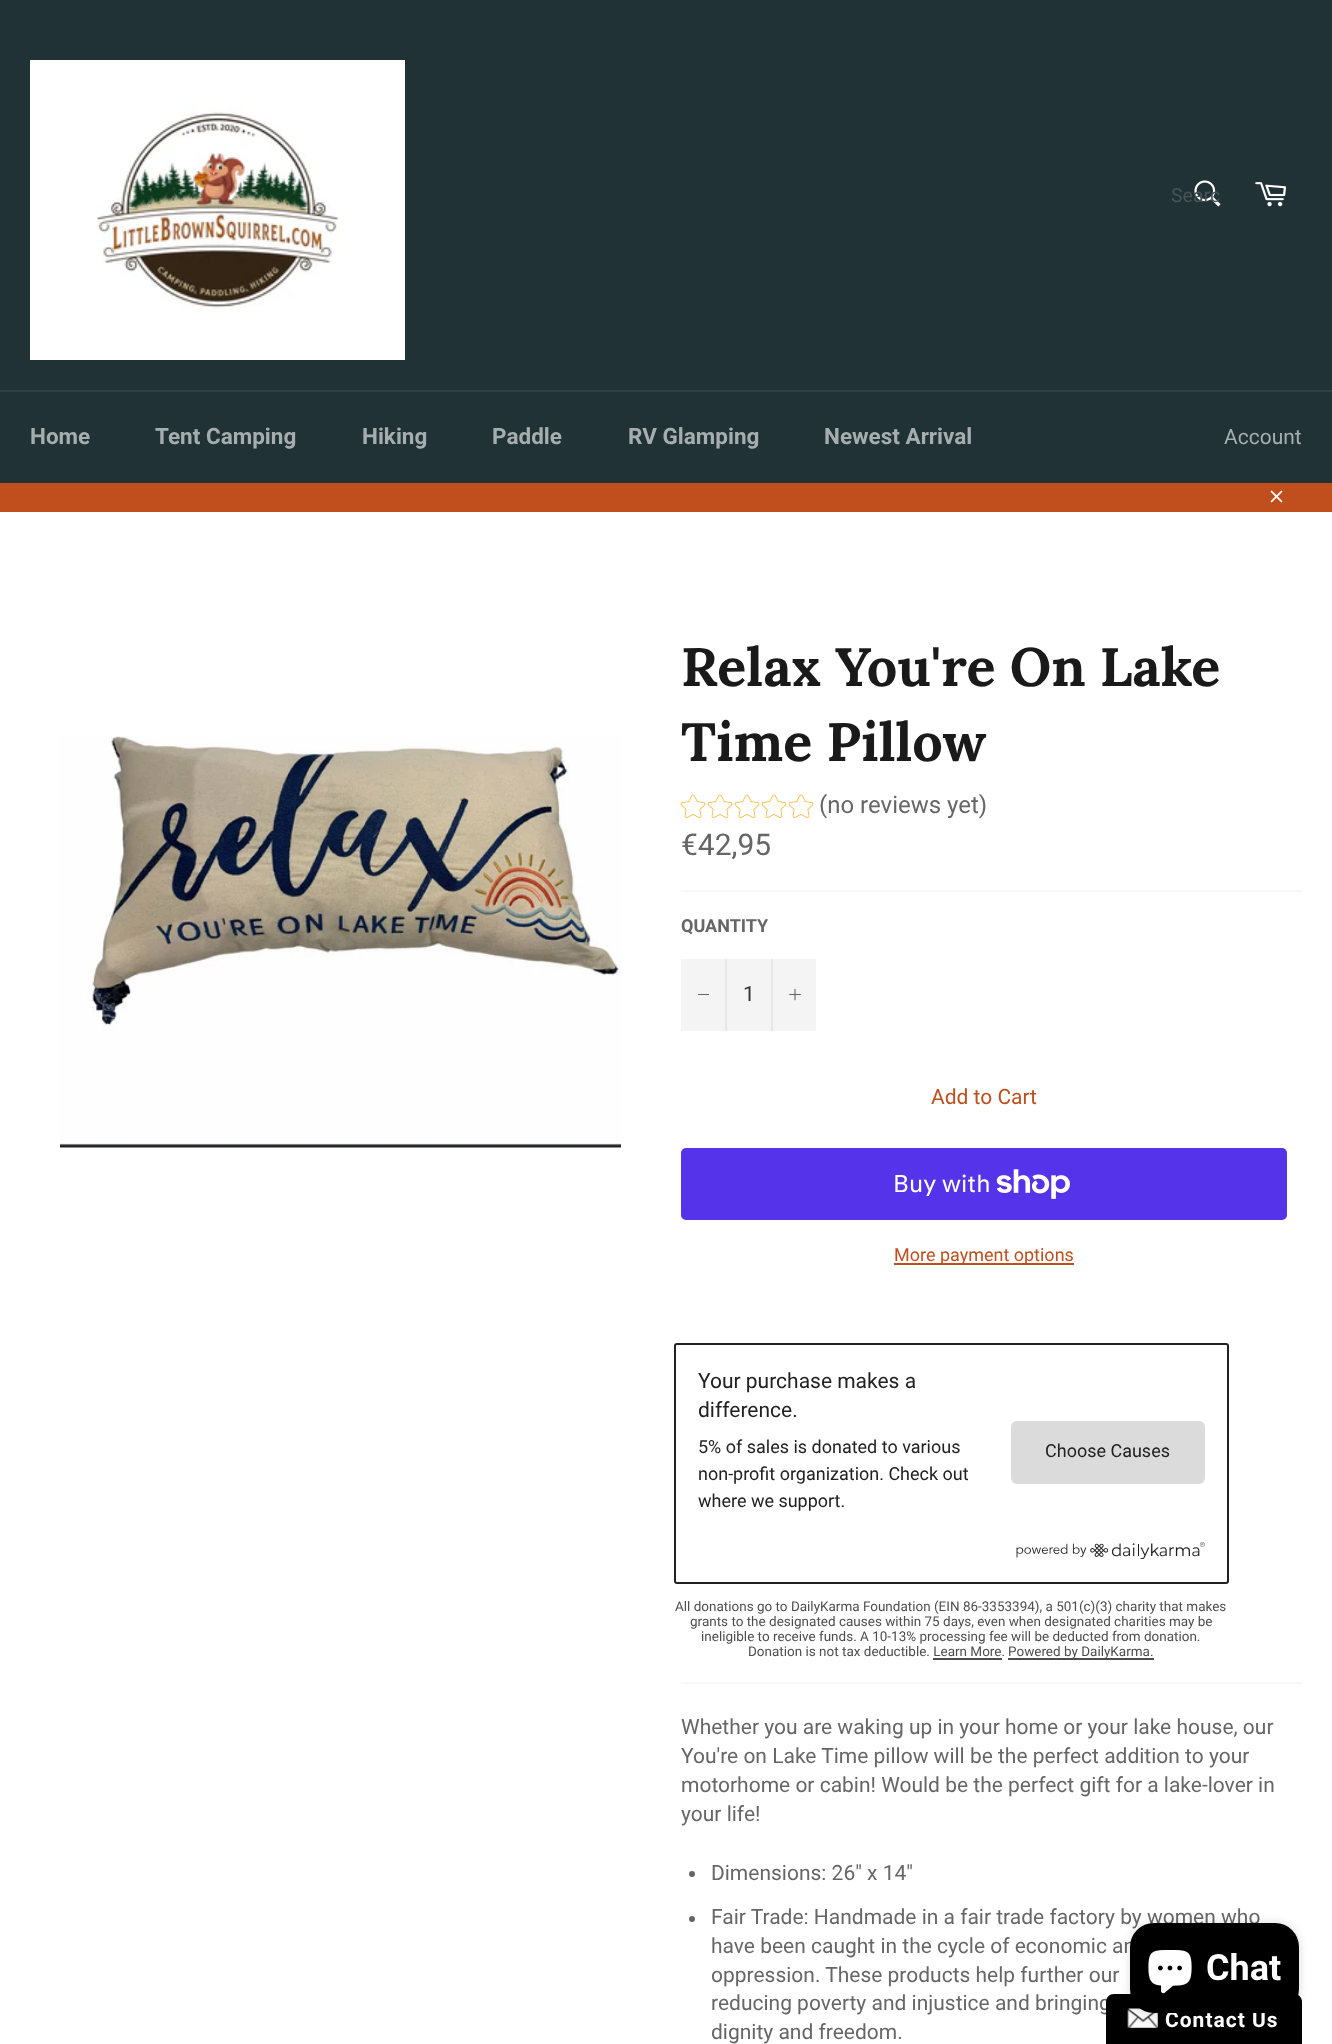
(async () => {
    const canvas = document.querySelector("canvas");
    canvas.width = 1332;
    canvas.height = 2044;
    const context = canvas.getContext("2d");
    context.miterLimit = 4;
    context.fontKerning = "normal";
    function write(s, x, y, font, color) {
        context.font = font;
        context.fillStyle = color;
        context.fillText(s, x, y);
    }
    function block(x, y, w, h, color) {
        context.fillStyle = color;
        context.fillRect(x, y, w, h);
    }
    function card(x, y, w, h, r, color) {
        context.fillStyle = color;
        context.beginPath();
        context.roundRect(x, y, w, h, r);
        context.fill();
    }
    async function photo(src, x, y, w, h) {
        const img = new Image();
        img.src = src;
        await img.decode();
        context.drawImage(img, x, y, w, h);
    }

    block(0, 0, 1332, 2044, "rgb(33, 50, 54)");
    await photo("media/1.png", 30, 60, 375, 300);
    await photo("media/2.png", 1194, 180, 27, 27);
    write("Searc", 1171, 202, "19.5px Roboto", "rgb(70, 84, 87)");
    await photo("media/3.png", 1255, 182, 31, 25);
    block(0, 390, 1332, 2, "rgb(43, 65, 70)");
    write("Home", 30, 444, "bold 22.5px Roboto", "rgb(166, 173, 175)");
    write("Tent Camping", 155, 444, "bold 22.5px Roboto", "rgb(166, 173, 175)");
    write("Hiking", 362, 444, "bold 22.5px Roboto", "rgb(166, 173, 175)");
    write("Paddle", 492, 444, "bold 22.5px Roboto", "rgb(166, 173, 175)");
    write("RV Glamping", 628, 444, "bold 22.5px Roboto", "rgb(166, 173, 175)");
    write("Newest Arrival", 824, 444, "bold 22.5px Roboto", "rgb(166, 173, 175)");
    write("Account", 1224, 444, "21px Roboto", "rgb(166, 173, 175)");
    block(0, 483, 1332, 29, "rgb(192, 79, 29)");
    await photo("media/4.png", 1270, 490, 13, 13);
    block(0, 512, 1332, 1532, "rgb(255, 255, 255)");
    await photo("media/5.png", 60, 736, 561, 412);
    write("Relax You're On Lake", 681, 686, "bold 54px Lora", "rgb(26, 26, 26)");
    write("Time Pillow", 681, 761, "bold 54px Lora", "rgb(26, 26, 26)");
    await photo("media/6.png", 680, 794, 26, 24);
    await photo("media/6.png", 707, 794, 26, 24);
    await photo("media/6.png", 734, 794, 26, 24);
    await photo("media/6.png", 761, 794, 26, 24);
    await photo("media/6.png", 788, 794, 26, 24);
    write("(no reviews yet)", 819, 813, "24px Roboto", "rgb(102, 102, 102)");
    write("€42,95", 681, 855, "30px Roboto", "rgb(102, 102, 102)");
    block(681, 890, 621, 2, "rgb(247, 247, 247)");
    write("QUANTITY", 681, 932, "bold 18px Roboto", "rgb(102, 102, 102)");
    block(681, 959, 135, 72, "rgb(244, 244, 244)");
    block(725, 959, 2, 72, "rgb(231, 231, 231)");
    block(698, 994, 11, 1, "rgb(102, 102, 102)");
    write("1", 743, 1001, "21px Roboto", "rgb(51, 51, 51)");
    block(771, 959, 2, 72, "rgb(231, 231, 231)");
    await photo("media/7.png", 789, 989, 12, 12);
    write("Add to Cart", 931, 1104, "21px Roboto", "rgb(192, 79, 29)");
    card(681, 1148, 606, 72, 5, "rgb(84, 51, 235)");
    write("Buy with", 893, 1192, "24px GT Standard", "rgb(255, 255, 255)");
    await photo("media/8.png", 996, 1169, 74, 30);
    block(894, 1263, 180, 2, "rgb(192, 79, 29)");
    write("More payment options", 894, 1261, "18px Roboto", "rgb(192, 79, 29)");
    context.beginPath();
    context.roundRect(675, 1344, 553, 239, 2);
    context.strokeStyle = "rgb(33, 33, 33)";
    context.lineWidth = 2;
    context.stroke();
    write("Your purchase makes a", 698, 1388, "21px Roboto", "rgb(33, 33, 33)");
    write("difference.", 698, 1417, "21px Roboto", "rgb(33, 33, 33)");
    write("5% of sales is donated to various", 698, 1453, "18px Roboto", "rgb(33, 33, 33)");
    write("non-profit organization. Check out", 698, 1480, "18px Roboto", "rgb(33, 33, 33)");
    write("where we support.", 698, 1507, "18px Roboto", "rgb(33, 33, 33)");
    card(1011, 1421, 194, 63, 6, "rgb(219, 219, 219)");
    write("Choose Causes", 1045, 1457, "18px Roboto", "rgb(33, 33, 33)");
    await photo("media/9.png", 1016, 1542, 189, 18);
    write("All donations go to DailyKarma Foundation (EIN 86-3353394), a 501(c)(3) charity that makes", 675, 1611, "13.5px Roboto", "rgb(77, 77, 77)");
    write("grants to the designated causes within 75 days, even when designated charities may be", 690, 1626, "13.5px Roboto", "rgb(77, 77, 77)");
    write("ineligible to receive funds. A 10-13% processing fee will be deducted from donation.", 701, 1641, "13.5px Roboto", "rgb(77, 77, 77)");
    write("Donation is not tax deductible. Learn More.", 748, 1656, "13.5px Roboto", "rgb(77, 77, 77)");
    block(1008, 1658, 146, 2, "rgb(77, 77, 77)");
    write("Powered by DailyKarma.", 1008, 1656, "13.5px Roboto", "rgb(77, 77, 77)");
    block(933, 1658, 69, 2, "rgb(77, 77, 77)");
    block(681, 1682, 621, 2, "rgb(247, 247, 247)");
    write("Whether you are waking up in your home or your lake house, our", 681, 1734, "21px Roboto", "rgb(102, 102, 102)");
    write("You're on Lake Time pillow will be the perfect addition to your", 681, 1763, "21px Roboto", "rgb(102, 102, 102)");
    write("motorhome or cabin! Would be the perfect gift for a lake-lover in", 681, 1792, "21px Roboto", "rgb(102, 102, 102)");
    write("your life!", 681, 1821, "21px Roboto", "rgb(102, 102, 102)");
    context.beginPath();
    context.arc(692, 1874, 3, 0, Math.PI * 2);
    context.fill();
    write("Dimensions: 26\" x 14\"", 711, 1880, "21px Roboto", "rgb(102, 102, 102)");
    context.beginPath();
    context.arc(692, 1919, 3, 0, Math.PI * 2);
    context.fill();
    write("Fair Trade: Handmade in a fair trade factory by women who", 711, 1924, "21px Roboto", "rgb(102, 102, 102)");
    write("have been caught in the cycle of economic an", 711, 1953, "21px Roboto", "rgb(102, 102, 102)");
    write("oppression. These products help further our", 711, 1982, "21px Roboto", "rgb(102, 102, 102)");
    write("reducing poverty and injustice and bringing", 711, 2010, "21px Roboto", "rgb(102, 102, 102)");
    write("dignity and freedom.", 711, 2039, "21px Roboto", "rgb(102, 102, 102)");
    context.fillStyle = "rgb(0, 0, 0)";
    context.beginPath();
    context.moveTo(1114, 1994);
    context.lineTo(1294, 1994);
    context.bezierCurveTo(1298.5, 1994, 1302, 1997.5, 1302, 2002);
    context.lineTo(1302, 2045);
    context.lineTo(1106, 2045);
    context.lineTo(1106, 2002);
    context.bezierCurveTo(1106, 1997.5, 1109.5, 1994, 1114, 1994);
    context.closePath();
    context.fill();
    await photo("media/11.png", 1127, 2008, 31, 20);
    context.fillStyle = "rgba(0, 0, 0, 0.15)";
    context.filter = "blur(4px)";
    context.beginPath();
    context.roundRect(1130, 1923, 169, 90, 24);
    context.fill();
    context.filter = "none";
    context.letterSpacing = "1px";
    write("Contact Us", 1165, 2027, "bold 21px Roboto", "rgb(255, 255, 255)");
    card(1130, 1923, 169, 90, 24, "rgb(0, 0, 0)");
    await photo("media/10.png", 1148, 1950, 44, 44);
    context.letterSpacing = "0px";
    write("Chat", 1206, 1980, "bold 36px Roboto", "rgb(255, 255, 255)");
})();
